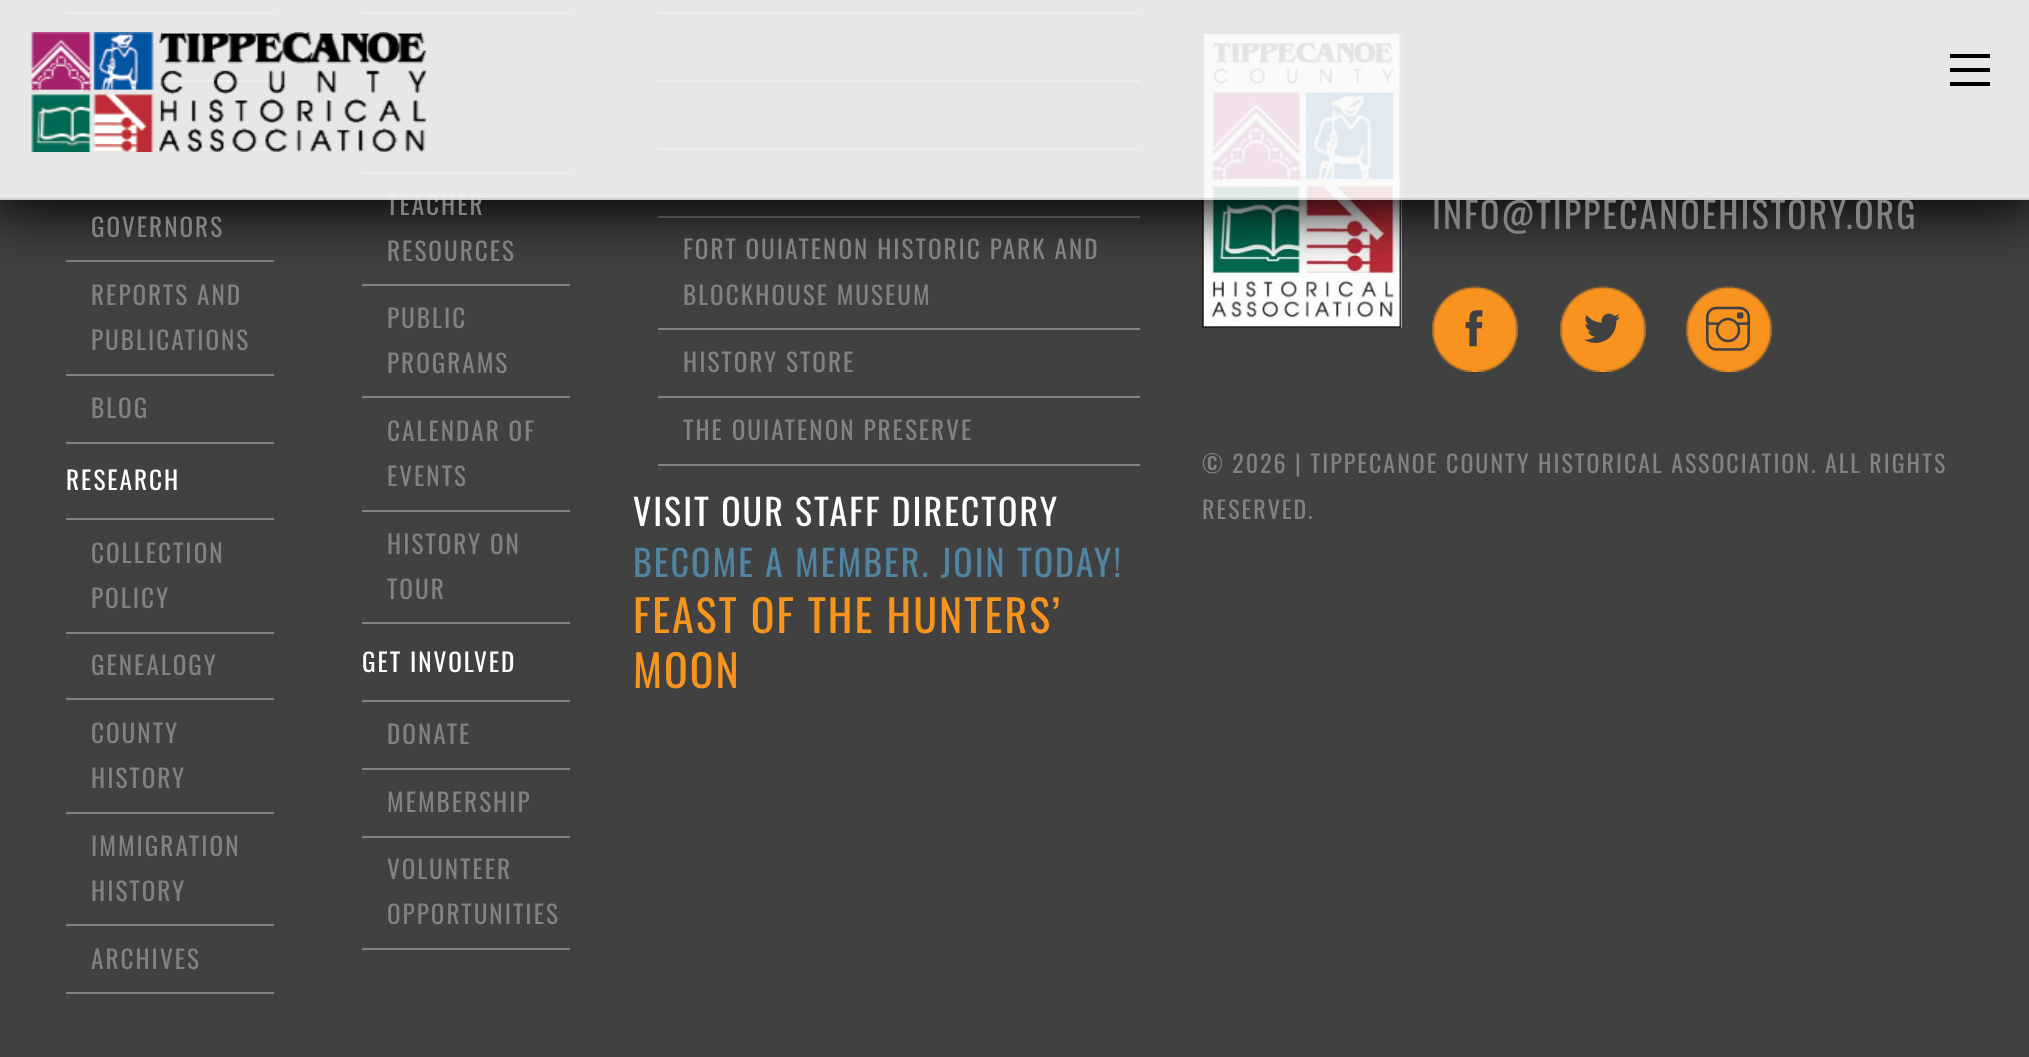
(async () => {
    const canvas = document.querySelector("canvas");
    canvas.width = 2029;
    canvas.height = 1057;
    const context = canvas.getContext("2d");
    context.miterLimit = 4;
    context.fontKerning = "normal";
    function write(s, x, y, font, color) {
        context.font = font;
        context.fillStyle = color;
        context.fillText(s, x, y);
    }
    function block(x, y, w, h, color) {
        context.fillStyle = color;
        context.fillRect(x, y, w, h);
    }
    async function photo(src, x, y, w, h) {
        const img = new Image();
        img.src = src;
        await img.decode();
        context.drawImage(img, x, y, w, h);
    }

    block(0, 0, 2029, 1057, "rgb(65, 65, 66)");
    block(66, 12, 208, 2, "rgb(128, 130, 133)");
    block(89, 80, 185, 2, "rgb(128, 130, 133)");
    block(89, 148, 185, 2, "rgb(128, 130, 133)");
    block(66, 260, 208, 2, "rgb(128, 130, 133)");
    block(362, 12, 208, 2, "rgb(128, 130, 133)");
    block(362, 172, 208, 2, "rgb(128, 130, 133)");
    block(362, 284, 208, 2, "rgb(128, 130, 133)");
    block(658, 12, 482, 2, "rgb(128, 130, 133)");
    block(658, 80, 482, 2, "rgb(128, 130, 133)");
    block(658, 148, 482, 2, "rgb(128, 130, 133)");
    block(658, 216, 482, 2, "rgb(128, 130, 133)");
    await photo("media/2.png", 1202, 32, 200, 296);
    await photo("media/3.png", 1432, 286, 86, 86);
    await photo("media/3.png", 1560, 286, 86, 86);
    await photo("media/3.png", 1686, 286, 86, 86);
    context.save();
    context.beginPath();
    context.rect(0, 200, 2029, 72);
    context.clip();
    context.fillStyle = "rgb(0, 0, 0)";
    context.filter = "blur(30px)";
    context.beginPath();
    context.rect(-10, -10, 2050, 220);
    context.fill();
    context.filter = "none";
    context.restore();
    context.letterSpacing = "2px";
    write("TEACHER", 387, 215, "25.25px Oswald", "rgb(128, 130, 133)");
    write("INFO@TIPPECANOEHISTORY.ORG", 1432, 229, "36px Oswald", "rgb(128, 130, 133)");
    block(0, 0, 2029, 200, "rgba(250, 250, 250, 0.9)");
    block(0, 198, 2029, 2, "rgba(0, 0, 0, 0.1)");
    await photo("media/1.png", 30, 32, 396, 120);
    block(1950, 82, 40, 4, "rgb(0, 0, 0)");
    block(1950, 54, 40, 4, "rgb(0, 0, 0)");
    block(1950, 68, 40, 4, "rgb(0, 0, 0)");
    write("GOVERNORS", 91, 237, "25.25px Oswald", "rgb(128, 130, 133)");
    write("REPORTS AND", 91, 305, "25.25px Oswald", "rgb(128, 130, 133)");
    write("PUBLICATIONS", 91, 350, "25.25px Oswald", "rgb(128, 130, 133)");
    block(66, 374, 208, 2, "rgb(128, 130, 133)");
    block(66, 442, 208, 2, "rgb(128, 130, 133)");
    write("BLOG", 91, 418, "25.25px Oswald", "rgb(128, 130, 133)");
    write("RESEARCH", 66, 490, "25.25px Oswald", "rgb(255, 255, 255)");
    block(66, 518, 208, 2, "rgb(128, 130, 133)");
    write("COLLECTION", 91, 563, "25.25px Oswald", "rgb(128, 130, 133)");
    write("POLICY", 91, 608, "25.25px Oswald", "rgb(128, 130, 133)");
    block(66, 632, 208, 2, "rgb(128, 130, 133)");
    write("GENEALOGY", 91, 675, "25.25px Oswald", "rgb(128, 130, 133)");
    block(66, 698, 208, 2, "rgb(128, 130, 133)");
    write("COUNTY", 91, 743, "25.25px Oswald", "rgb(128, 130, 133)");
    write("HISTORY", 91, 788, "25.25px Oswald", "rgb(128, 130, 133)");
    block(66, 812, 208, 2, "rgb(128, 130, 133)");
    write("IMMIGRATION", 91, 856, "25.25px Oswald", "rgb(128, 130, 133)");
    write("HISTORY", 91, 901, "25.25px Oswald", "rgb(128, 130, 133)");
    block(66, 924, 208, 2, "rgb(128, 130, 133)");
    block(66, 992, 208, 2, "rgb(128, 130, 133)");
    write("ARCHIVES", 91, 969, "25.25px Oswald", "rgb(128, 130, 133)");
    write("RESOURCES", 387, 261, "25.25px Oswald", "rgb(128, 130, 133)");
    write("PUBLIC", 387, 328, "25.25px Oswald", "rgb(128, 130, 133)");
    write("PROGRAMS", 387, 373, "25.25px Oswald", "rgb(128, 130, 133)");
    block(362, 396, 208, 2, "rgb(128, 130, 133)");
    write("CALENDAR OF", 387, 441, "25.25px Oswald", "rgb(128, 130, 133)");
    write("EVENTS", 387, 486, "25.25px Oswald", "rgb(128, 130, 133)");
    block(362, 510, 208, 2, "rgb(128, 130, 133)");
    block(362, 622, 208, 2, "rgb(128, 130, 133)");
    write("HISTORY ON", 387, 554, "25.25px Oswald", "rgb(128, 130, 133)");
    write("TOUR", 387, 599, "25.25px Oswald", "rgb(128, 130, 133)");
    write("GET INVOLVED", 362, 672, "25.25px Oswald", "rgb(255, 255, 255)");
    block(362, 700, 208, 2, "rgb(128, 130, 133)");
    write("DONATE", 387, 744, "25.25px Oswald", "rgb(128, 130, 133)");
    block(362, 768, 208, 2, "rgb(128, 130, 133)");
    write("MEMBERSHIP", 387, 812, "25.25px Oswald", "rgb(128, 130, 133)");
    block(362, 836, 208, 2, "rgb(128, 130, 133)");
    block(362, 948, 208, 2, "rgb(128, 130, 133)");
    write("VOLUNTEER", 387, 879, "25.25px Oswald", "rgb(128, 130, 133)");
    write("OPPORTUNITIES", 387, 924, "25.25px Oswald", "rgb(128, 130, 133)");
    write("FORT OUIATENON HISTORIC PARK AND", 683, 259, "25.25px Oswald", "rgb(128, 130, 133)");
    write("BLOCKHOUSE MUSEUM", 683, 305, "25.25px Oswald", "rgb(128, 130, 133)");
    block(658, 328, 482, 2, "rgb(128, 130, 133)");
    write("HISTORY STORE", 683, 372, "25.25px Oswald", "rgb(128, 130, 133)");
    block(658, 396, 482, 2, "rgb(128, 130, 133)");
    block(658, 464, 482, 2, "rgb(128, 130, 133)");
    write("THE OUIATENON PRESERVE", 683, 440, "25.25px Oswald", "rgb(128, 130, 133)");
    write("VISIT OUR STAFF DIRECTORY", 633, 526, "36px Oswald", "rgb(255, 255, 255)");
    write("BECOME A MEMBER. JOIN TODAY!", 633, 577, "36px Oswald", "rgb(80, 132, 161)");
    write("FEAST OF THE HUNTERS’", 633, 633, "44px Oswald", "rgb(247, 148, 30)");
    write("MOON", 633, 688, "44px Oswald", "rgb(247, 148, 30)");
    await photo("media/4.png", 1465, 310, 18, 37);
    await photo("media/5.png", 1584, 313, 36, 30);
    await photo("media/6.png", 1706, 306, 44, 45);
    write("© 2026 | TIPPECANOE COUNTY HISTORICAL ASSOCIATION. ALL RIGHTS", 1202, 473, "24px Oswald", "rgb(128, 130, 133)");
    write("RESERVED.", 1202, 519, "24px Oswald", "rgb(128, 130, 133)");
})();
